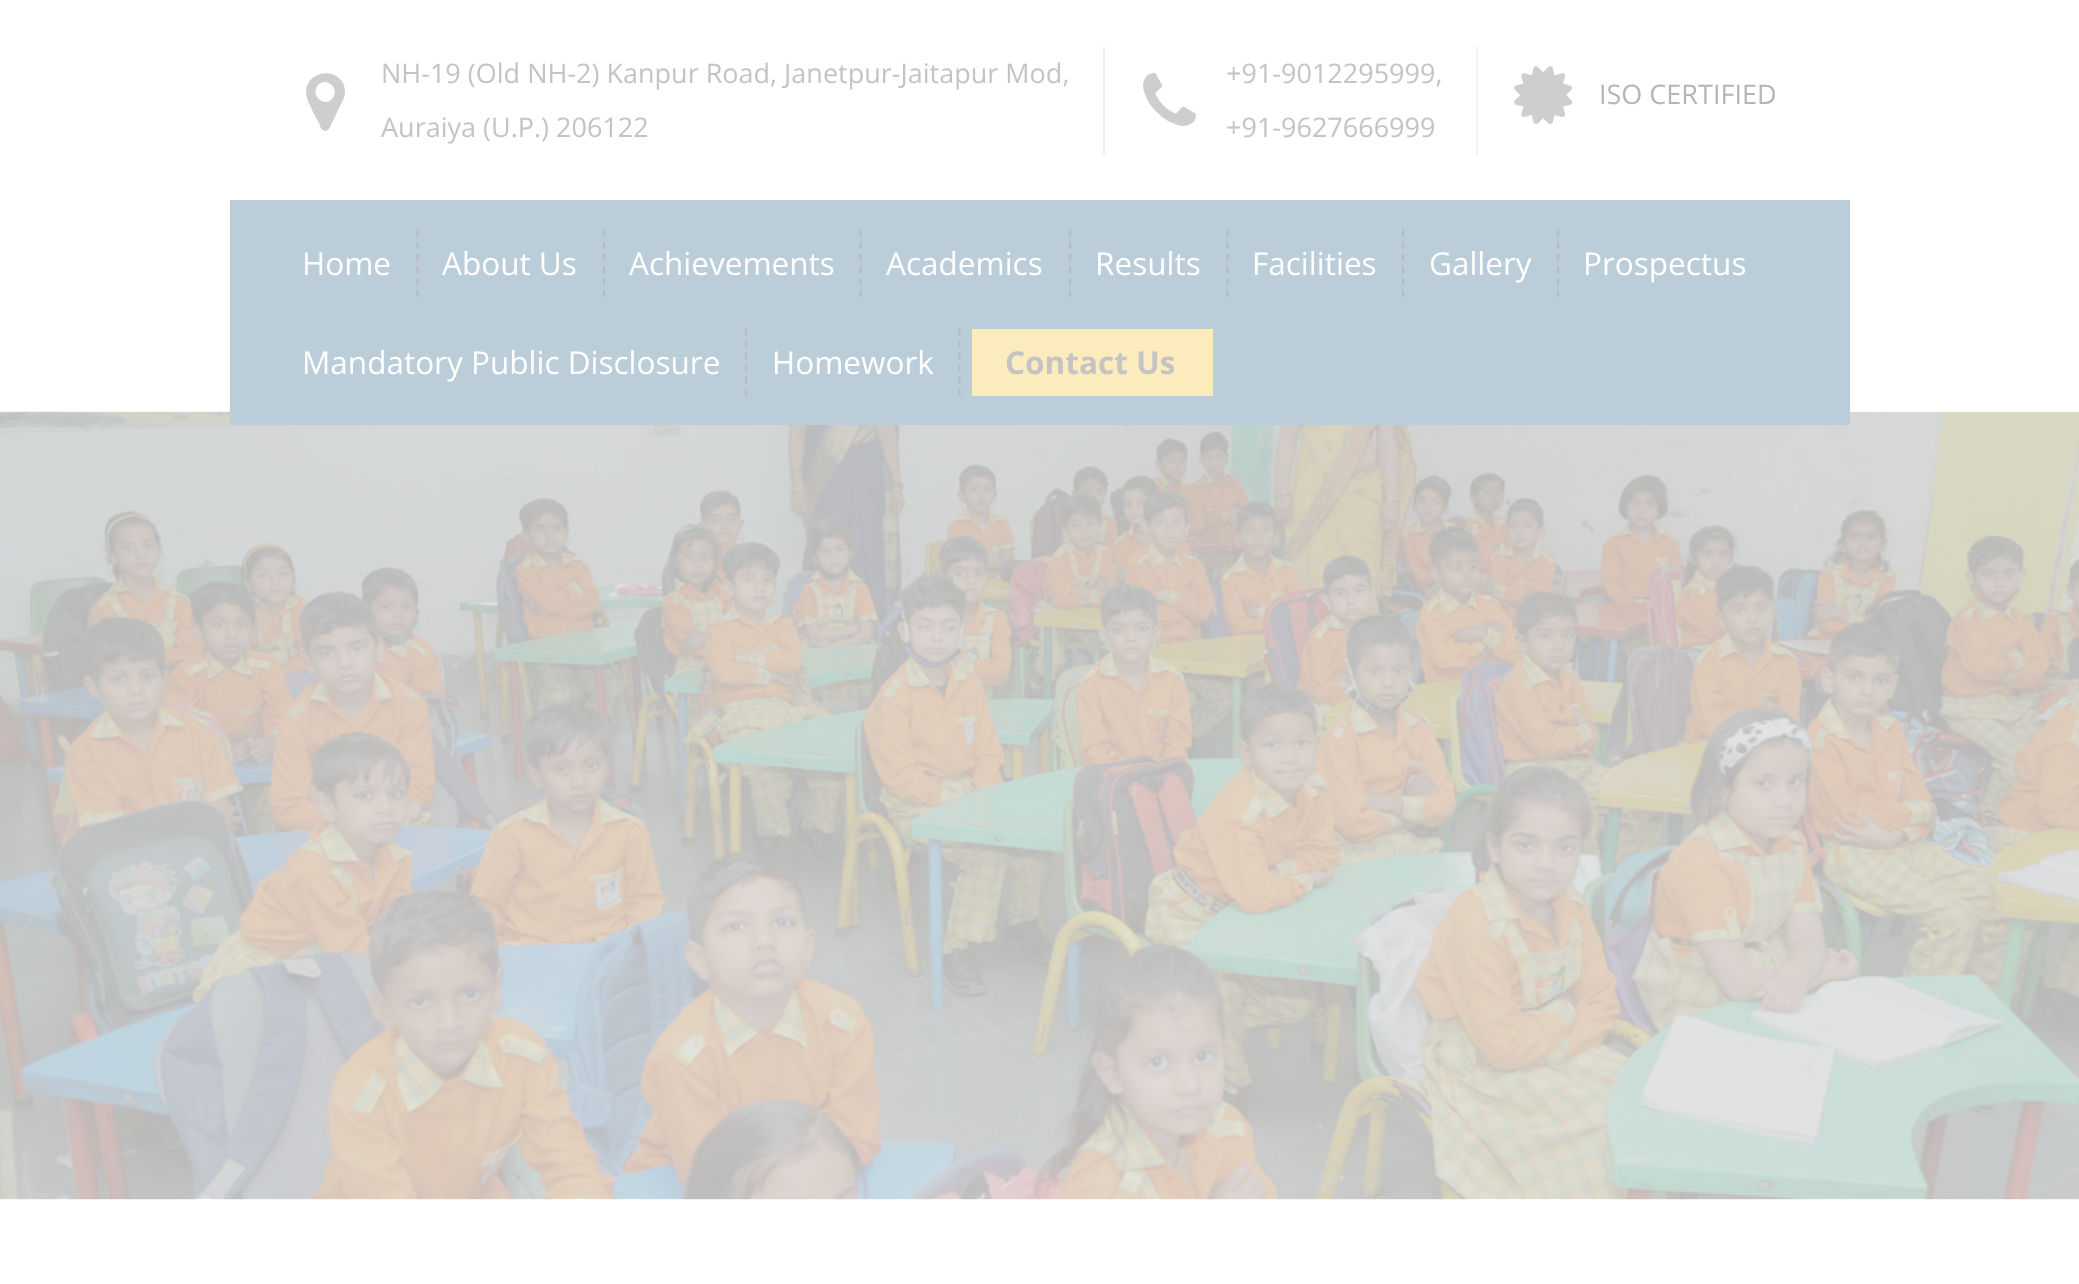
(async () => {
    const canvas = document.querySelector("canvas");
    canvas.width = 2079;
    canvas.height = 1284;
    const context = canvas.getContext("2d");
    context.miterLimit = 4;
    context.fontKerning = "normal";
    function write(s, x, y, font, color) {
        context.font = font;
        context.fillStyle = color;
        context.fillText(s, x, y);
    }
    function block(x, y, w, h, color) {
        context.fillStyle = color;
        context.fillRect(x, y, w, h);
    }
    async function photo(src, x, y, w, h) {
        const img = new Image();
        img.src = src;
        await img.decode();
        context.drawImage(img, x, y, w, h);
    }

    block(0, 0, 2079, 1284, "rgb(255, 255, 255)");
    block(1103, 47, 2, 108, "rgb(241, 241, 241)");
    context.fillStyle = "rgb(206, 206, 206)";
    context.beginPath();
    context.moveTo(332, 99);
    context.bezierCurveTo(341, 90, 327, 76, 318, 85);
    context.bezierCurveTo(310, 94, 323, 108, 332, 99);
    context.closePath();
    context.moveTo(345, 92);
    context.bezierCurveTo(345, 97, 343, 100, 341, 104);
    context.lineTo(329, 129);
    context.lineTo(326, 131);
    context.bezierCurveTo(321, 131, 320, 126, 319, 123);
    context.lineTo(314, 114);
    context.bezierCurveTo(311, 107, 306, 99, 306, 92);
    context.bezierCurveTo(307, 67, 345, 67, 345, 92);
    context.closePath();
    context.fill();
    write("NH-19 (Old NH-2) Kanpur Road, Janetpur-Jaitapur Mod,", 381, 83, "27px Open Sans", "rgb(196, 196, 196)");
    write("Auraiya (U.P.) 206122", 381, 137, "27px Open Sans", "rgb(196, 196, 196)");
    block(1476, 47, 2, 108, "rgb(241, 241, 241)");
    await photo("media/1.png", 1143, 73, 53, 53);
    write("+91-9012295999,", 1226, 83, "27px Open Sans", "rgb(196, 196, 196)");
    write("+91-9627666999", 1226, 137, "27px Open Sans", "rgb(196, 196, 196)");
    await photo("media/2.png", 1514, 66, 59, 59);
    write("ISO CERTIFIED", 1599, 104, "27px Open Sans", "rgb(181, 181, 181)");
    await photo("media/3.png", 0, 411, 2079, 789);
    block(230, 200, 1620, 225, "rgb(187, 205, 216)");
    context.beginPath();
    context.moveTo(417.5, 229.5);
    context.lineTo(417.5, 297);
    context.strokeStyle = "rgb(183, 187, 192)";
    context.lineWidth = 2.2;
    context.setLineDash([6.75, 5.4]);
    context.stroke();
    write("Home", 302, 275, "31.5px Open Sans", "rgb(255, 255, 255)");
    context.beginPath();
    context.moveTo(604, 229.5);
    context.lineTo(604, 297);
    context.stroke();
    write("About Us", 442, 275, "31.5px Open Sans", "rgb(255, 255, 255)");
    context.beginPath();
    context.moveTo(860.5, 229.5);
    context.lineTo(860.5, 297);
    context.stroke();
    write("Achievements", 629, 275, "31.5px Open Sans", "rgb(255, 255, 255)");
    context.beginPath();
    context.moveTo(1070, 229.5);
    context.lineTo(1070, 297);
    context.stroke();
    write("Academics", 886, 275, "31.5px Open Sans", "rgb(255, 255, 255)");
    context.beginPath();
    context.moveTo(1227.5, 229.5);
    context.lineTo(1227.5, 297);
    context.stroke();
    write("Results", 1095, 275, "31.5px Open Sans", "rgb(255, 255, 255)");
    context.beginPath();
    context.moveTo(1403, 229.5);
    context.lineTo(1403, 297);
    context.stroke();
    write("Facilities", 1252, 275, "31.5px Open Sans", "rgb(255, 255, 255)");
    context.beginPath();
    context.moveTo(1558, 229.5);
    context.lineTo(1558, 297);
    context.stroke();
    write("Gallery", 1429, 275, "31.5px Open Sans", "rgb(255, 255, 255)");
    write("Prospectus", 1583, 275, "31.5px Open Sans", "rgb(255, 255, 255)");
    context.beginPath();
    context.moveTo(746, 328.5);
    context.lineTo(746, 396);
    context.stroke();
    write("Mandatory Public Disclosure", 302, 374, "31.5px Open Sans", "rgb(255, 255, 255)");
    context.beginPath();
    context.moveTo(959.5, 328.5);
    context.lineTo(959.5, 396);
    context.stroke();
    write("Homework", 772, 374, "31.5px Open Sans", "rgb(255, 255, 255)");
    block(972, 329, 241, 67, "rgb(252, 235, 188)");
    write("Contact Us", 1005, 374, "bold 31.5px Open Sans", "rgb(196, 196, 196)");
})();
